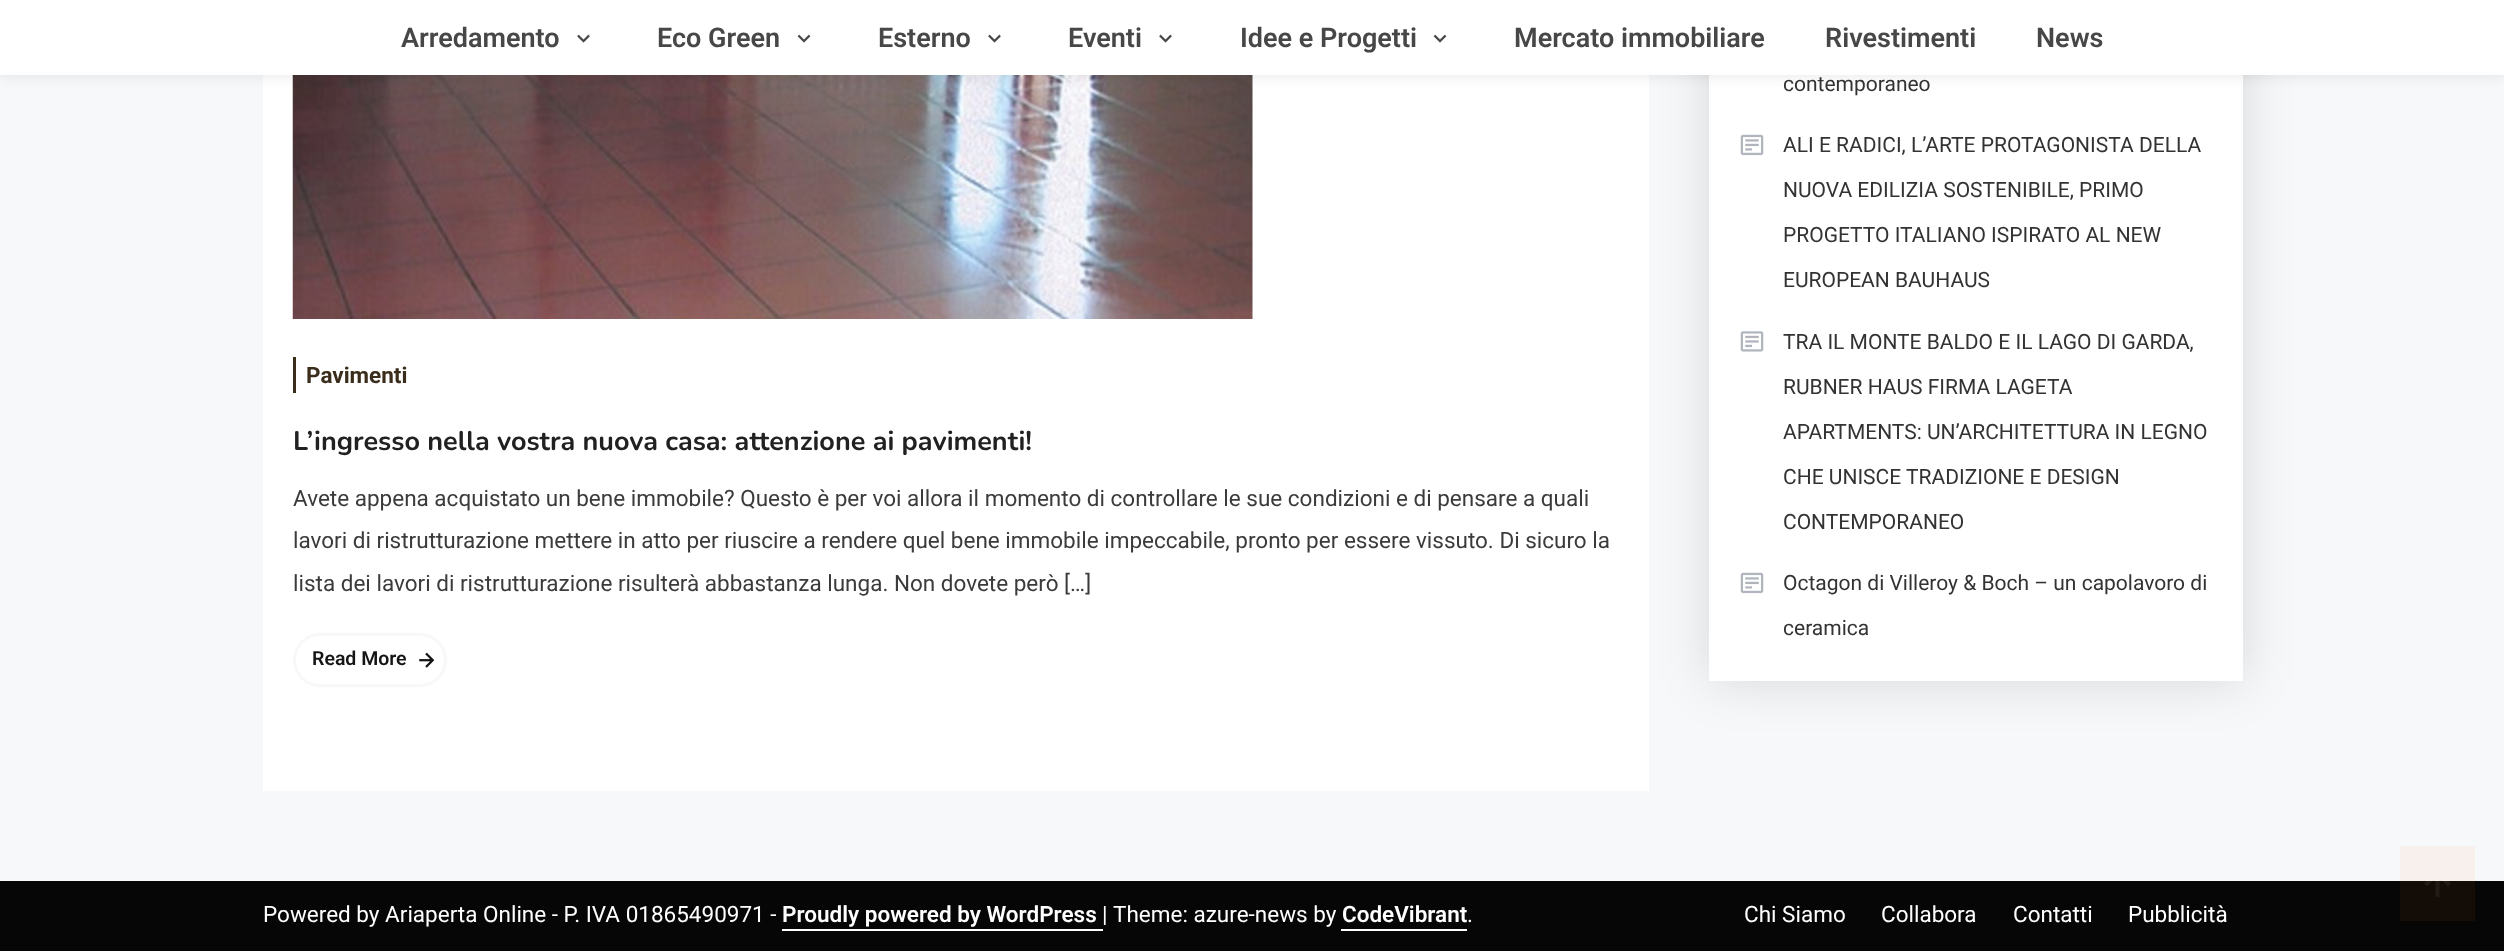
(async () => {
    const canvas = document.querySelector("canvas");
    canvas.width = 2504;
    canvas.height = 951;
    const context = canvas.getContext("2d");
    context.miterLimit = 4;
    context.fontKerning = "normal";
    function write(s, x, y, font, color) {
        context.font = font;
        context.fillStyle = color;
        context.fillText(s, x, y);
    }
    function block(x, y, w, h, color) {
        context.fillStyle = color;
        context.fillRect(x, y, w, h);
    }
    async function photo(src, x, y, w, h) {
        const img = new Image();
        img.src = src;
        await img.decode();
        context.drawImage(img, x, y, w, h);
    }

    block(0, 0, 2504, 951, "rgb(247, 248, 249)");
    block(263, 75, 1386, 716, "rgb(255, 255, 255)");
    await photo("media/3.png", 292, 75, 961, 244);
    context.fillStyle = "rgba(0, 0, 0, 0.13)";
    context.filter = "blur(26px)";
    context.beginPath();
    context.rect(1709, -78, 534, 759);
    context.fill();
    context.filter = "none";
    block(1709, 75, 534, 606, "rgb(255, 255, 255)");
    context.fillStyle = "rgba(0, 0, 0, 0.1)";
    context.filter = "blur(7.5px)";
    context.beginPath();
    context.rect(0, 0, 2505, 75);
    context.fill();
    context.filter = "none";
    block(0, 0, 2504, 75, "rgb(255, 255, 255)");
    write("Arredamento", 401, 47, "600 27px Roboto", "rgb(72, 71, 71)");
    await photo("media/1.png", 577, 34, 13, 9);
    write("Eco Green", 657, 47, "600 27px Roboto", "rgb(72, 71, 71)");
    await photo("media/2.png", 797, 34, 14, 9);
    write("Esterno", 878, 47, "600 27px Roboto", "rgb(72, 71, 71)");
    await photo("media/1.png", 988, 34, 13, 9);
    write("Eventi", 1068, 47, "600 27px Roboto", "rgb(72, 71, 71)");
    await photo("media/1.png", 1159, 34, 13, 9);
    write("Idee e Progetti", 1240, 47, "600 27px Roboto", "rgb(72, 71, 71)");
    await photo("media/2.png", 1433, 34, 14, 9);
    write("Mercato immobiliare", 1514, 47, "600 27px Roboto", "rgb(72, 71, 71)");
    write("Rivestimenti", 1825, 47, "600 27px Roboto", "rgb(72, 71, 71)");
    write("News", 2036, 47, "600 27px Roboto", "rgb(72, 71, 71)");
    write("Pavimenti", 306, 383, "bold 22.5px Roboto", "rgb(59, 45, 27)");
    block(293, 357, 3, 36, "rgb(59, 45, 27)");
    write("L’ingresso nella vostra nuova casa: attenzione ai pavimenti!", 293, 450, "bold 27px Nunito", "rgb(33, 33, 33)");
    write("Avete appena acquistato un bene immobile? Questo è per voi allora il momento di controllare le sue condizioni e di pensare a quali", 293, 506, "22.5px Roboto", "rgb(59, 59, 59)");
    write("lavori di ristrutturazione mettere in atto per riuscire a rendere quel bene immobile impeccabile, pronto per essere vissuto. Di sicuro la", 293, 548, "22.5px Roboto", "rgb(59, 59, 59)");
    write("lista dei lavori di ristrutturazione risulterà abbastanza lunga. Non dovete però […]", 293, 591, "22.5px Roboto", "rgb(59, 59, 59)");
    context.beginPath();
    context.roundRect(294.5, 634.5, 151, 51, 25.5);
    context.strokeStyle = "rgb(247, 248, 249)";
    context.lineWidth = 3;
    context.stroke();
    write("Read More", 312, 665, "600 19.5px Roboto", "rgb(21, 21, 21)");
    await photo("media/4.png", 419, 652, 16, 16);
    write("contemporaneo", 1783, 91, "21px Roboto", "rgb(51, 51, 51)");
    await photo("media/5.png", 1740, 134, 24, 22);
    write("ALI E RADICI, L’ARTE PROTAGONISTA DELLA", 1783, 152, "21px Roboto", "rgb(51, 51, 51)");
    write("NUOVA EDILIZIA SOSTENIBILE, PRIMO", 1783, 197, "21px Roboto", "rgb(51, 51, 51)");
    write("PROGETTO ITALIANO ISPIRATO AL NEW", 1783, 242, "21px Roboto", "rgb(51, 51, 51)");
    write("EUROPEAN BAUHAUS", 1783, 287, "21px Roboto", "rgb(51, 51, 51)");
    await photo("media/6.png", 1740, 331, 24, 21);
    write("TRA IL MONTE BALDO E IL LAGO DI GARDA,", 1783, 349, "21px Roboto", "rgb(51, 51, 51)");
    write("RUBNER HAUS FIRMA LAGETA", 1783, 394, "21px Roboto", "rgb(51, 51, 51)");
    write("APARTMENTS: UN’ARCHITETTURA IN LEGNO", 1783, 439, "21px Roboto", "rgb(51, 51, 51)");
    write("CHE UNISCE TRADIZIONE E DESIGN", 1783, 484, "21px Roboto", "rgb(51, 51, 51)");
    write("CONTEMPORANEO", 1783, 529, "21px Roboto", "rgb(51, 51, 51)");
    await photo("media/5.png", 1740, 572, 24, 22);
    write("Octagon di Villeroy & Boch – un capolavoro di", 1783, 590, "21px Roboto", "rgb(51, 51, 51)");
    write("ceramica", 1783, 635, "21px Roboto", "rgb(51, 51, 51)");
    block(0, 881, 2504, 70, "rgb(6, 6, 6)");
    write("Powered by Ariaperta Online - P. IVA 01865490971 -", 263, 922, "22.5px Roboto", "rgb(255, 255, 255)");
    write("Proudly powered by WordPress", 782, 922, "600 22.5px Roboto", "rgb(255, 255, 255)");
    block(782, 929, 321, 2, "rgb(255, 255, 255)");
    write("|", 1102, 922, "22.5px Roboto", "rgb(255, 255, 255)");
    write("Theme: azure-news by", 1113, 922, "22.5px Roboto", "rgb(255, 255, 255)");
    write("CodeVibrant", 1342, 922, "600 22.5px Roboto", "rgb(255, 255, 255)");
    block(1341, 929, 126, 2, "rgb(255, 255, 255)");
    write(".", 1467, 922, "22.5px Roboto", "rgb(255, 255, 255)");
    write("Chi Siamo", 1744, 922, "22.5px Roboto", "rgb(255, 255, 255)");
    write("Collabora", 1881, 922, "22.5px Roboto", "rgb(255, 255, 255)");
    write("Contatti", 2013, 922, "22.5px Roboto", "rgb(255, 255, 255)");
    write("Pubblicità", 2128, 922, "22.5px Roboto", "rgb(255, 255, 255)");
    block(2400, 846, 75, 75, "rgba(255, 114, 33, 0.06)");
    context.fillStyle = "rgba(255, 255, 255, 0.06)";
    context.beginPath();
    context.moveTo(2435.5, 878);
    context.lineTo(2435.5, 897);
    context.lineTo(2439.5, 897);
    context.lineTo(2439.5, 878);
    context.lineTo(2448, 886.5);
    context.lineTo(2451, 883.5);
    context.lineTo(2437.5, 870);
    context.lineTo(2424, 883.5);
    context.lineTo(2427, 886.5);
    context.closePath();
    context.fill();
})();
